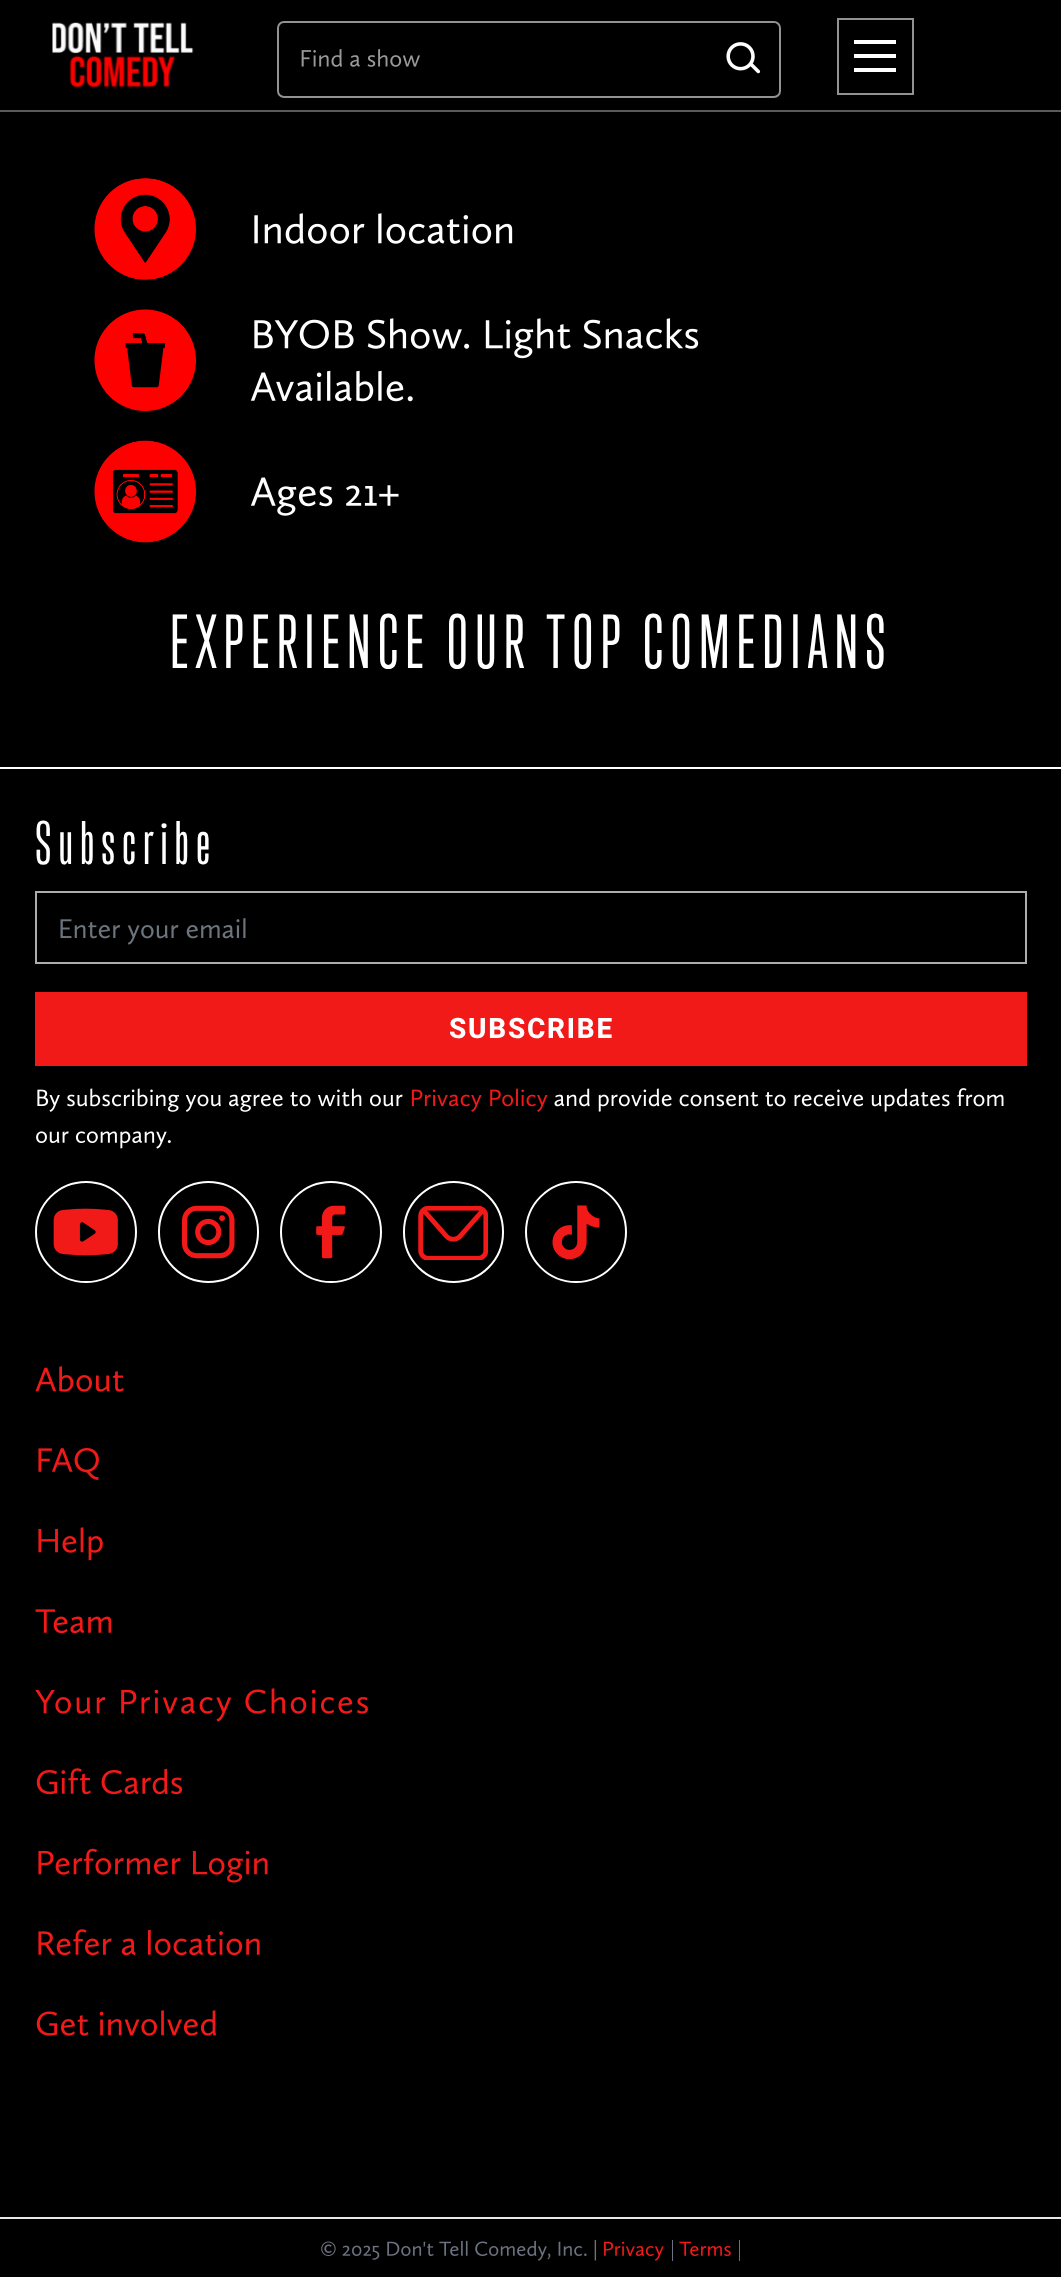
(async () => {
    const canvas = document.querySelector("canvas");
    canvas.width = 1061;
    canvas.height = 2277;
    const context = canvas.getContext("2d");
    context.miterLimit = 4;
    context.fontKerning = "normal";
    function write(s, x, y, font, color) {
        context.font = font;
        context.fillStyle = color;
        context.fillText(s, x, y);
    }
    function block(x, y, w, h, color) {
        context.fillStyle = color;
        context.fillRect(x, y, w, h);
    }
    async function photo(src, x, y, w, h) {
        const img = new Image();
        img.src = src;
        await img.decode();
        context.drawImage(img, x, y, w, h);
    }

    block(0, 0, 1061, 2277, "rgb(0, 0, 0)");
    block(0, 110, 1061, 2, "rgb(90, 90, 90)");
    await photo("media/1.png", 52, 22, 142, 66);
    await photo("media/2.png", 726, 42, 35, 32);
    context.beginPath();
    context.roundRect(278, 22, 502, 75, 6);
    context.strokeStyle = "rgb(146, 146, 146)";
    context.lineWidth = 2;
    context.stroke();
    await photo("media/3.png", 301, 49, 119, 18);
    context.strokeRect(838, 19, 75, 75);
    block(854, 40, 42, 4, "rgb(255, 255, 255)");
    block(854, 54, 42, 4, "rgb(255, 255, 255)");
    block(854, 68, 42, 4, "rgb(255, 255, 255)");
    await photo("media/4.png", 94, 178, 102, 102);
    await photo("media/5.png", 254, 213, 259, 31);
    await photo("media/6.png", 94, 309, 102, 102);
    await photo("media/7.png", 254, 318, 445, 41);
    await photo("media/8.png", 250, 370, 163, 32);
    await photo("media/9.png", 94, 440, 102, 103);
    await photo("media/10.png", 250, 477, 149, 39);
    context.letterSpacing = "7px";
    write("EXPERIENCE OUR TOP COMEDIANS", 170, 668, "70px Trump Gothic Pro", "rgb(255, 255, 255)");
    block(0, 767, 1061, 2, "rgb(255, 255, 255)");
    write("Subscribe", 35, 864, "56px Trump Gothic Pro", "rgb(255, 255, 255)");
    context.strokeStyle = "rgb(173, 173, 173)";
    context.strokeRect(36, 892, 990, 71);
    await photo("media/11.png", 60, 918, 186, 27);
    block(35, 992, 992, 74, "rgb(242, 25, 25)");
    context.letterSpacing = "1.75px";
    write("SUBSCRIBE", 449, 1038, "bold 28px Heebo", "rgb(255, 255, 255)");
    await photo("media/12.png", 37, 1088, 366, 24);
    await photo("media/13.png", 411, 1088, 137, 24);
    await photo("media/14.png", 554, 1088, 232, 24);
    await photo("media/15.png", 794, 1088, 210, 24);
    await photo("media/16.png", 36, 1131, 135, 18);
    context.beginPath();
    context.arc(86, 1232, 50, 0, Math.PI * 2);
    context.strokeStyle = "rgb(255, 255, 255)";
    context.stroke();
    await photo("media/17.png", 53, 1208, 65, 48);
    context.beginPath();
    context.roundRect(159, 1182, 99, 100, 49.5);
    context.stroke();
    await photo("media/18.png", 182, 1205, 53, 54);
    context.beginPath();
    context.arc(331, 1232, 50, 0, Math.PI * 2);
    context.stroke();
    await photo("media/19.png", 316, 1205, 30, 54);
    context.beginPath();
    context.roundRect(404, 1182, 99, 100, 49.5);
    context.stroke();
    await photo("media/20.png", 418, 1206, 70, 54);
    context.beginPath();
    context.arc(576, 1232, 50, 0, Math.PI * 2);
    context.stroke();
    await photo("media/21.png", 552, 1205, 48, 55);
    await photo("media/22.png", 35, 1366, 89, 26);
    await photo("media/23.png", 38, 1448, 61, 32);
    await photo("media/24.png", 38, 1527, 65, 34);
    await photo("media/25.png", 35, 1609, 77, 25);
    await photo("media/26.png", 35, 1688, 333, 34);
    await photo("media/27.png", 36, 1768, 147, 27);
    await photo("media/28.png", 38, 1848, 230, 35);
    await photo("media/29.png", 38, 1929, 222, 27);
    await photo("media/30.png", 36, 2010, 180, 26);
    block(0, 2217, 1061, 2, "rgb(229, 231, 235)");
    await photo("media/31.png", 321, 2240, 276, 21);
    await photo("media/32.png", 604, 2241, 60, 20);
    block(672, 2240, 1, 21, "rgb(107, 114, 128)");
    await photo("media/33.png", 679, 2241, 52, 15);
    block(739, 2240, 1, 21, "rgb(107, 114, 128)");
})();
